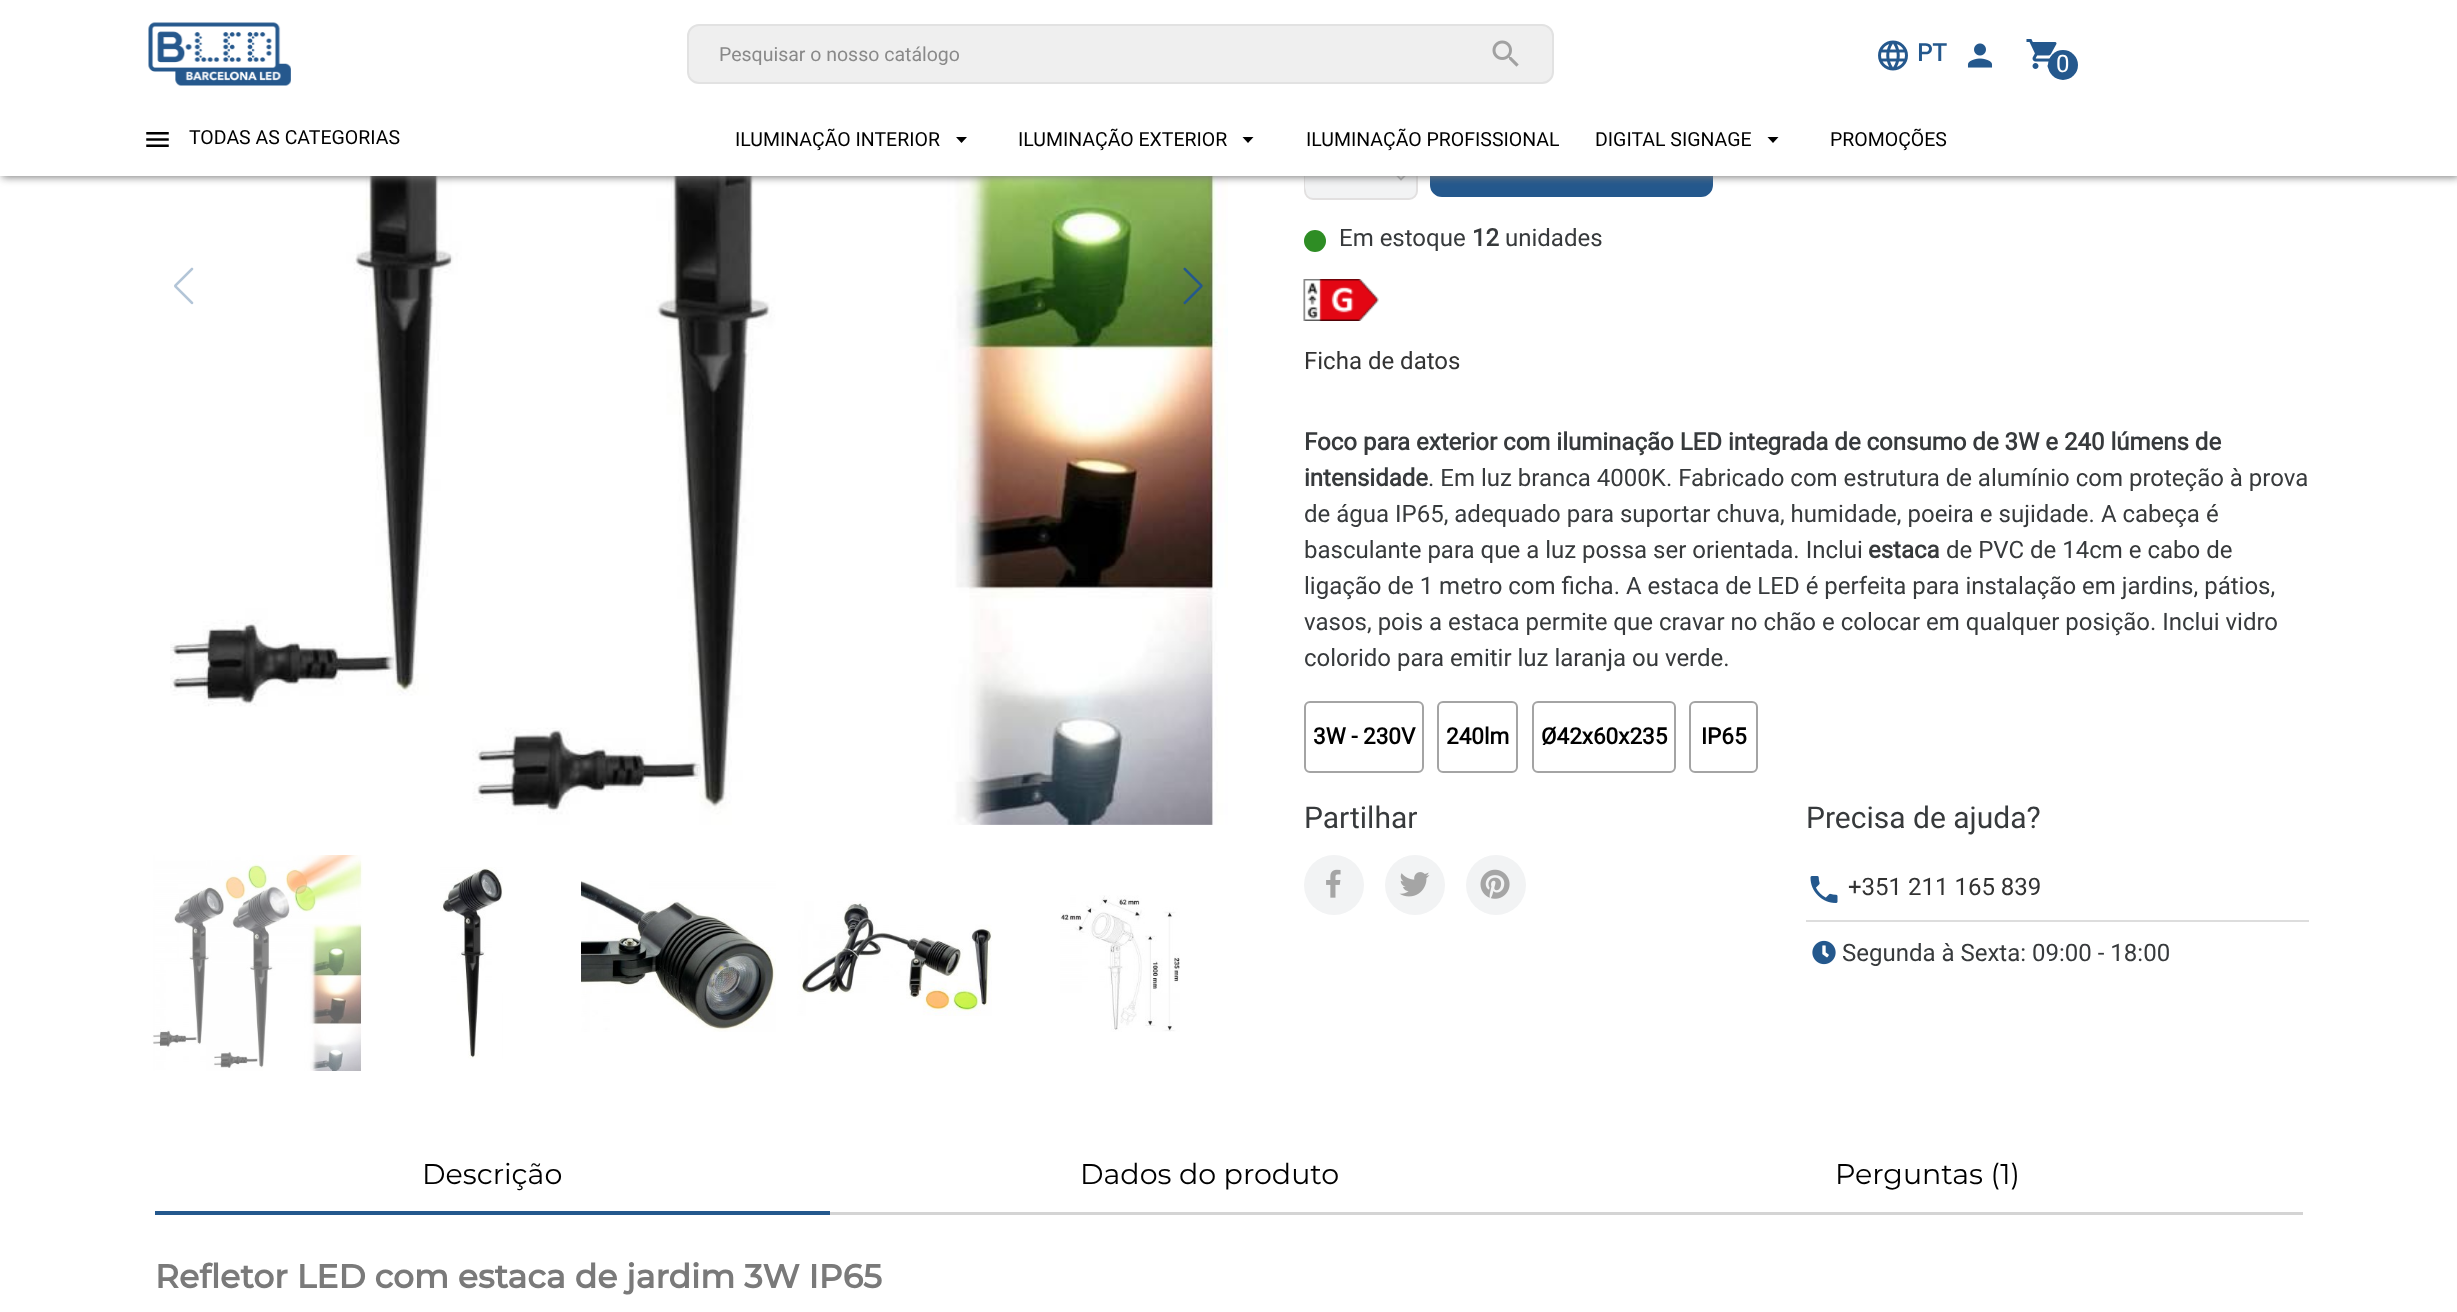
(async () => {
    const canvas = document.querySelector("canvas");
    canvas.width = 2457;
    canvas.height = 1312;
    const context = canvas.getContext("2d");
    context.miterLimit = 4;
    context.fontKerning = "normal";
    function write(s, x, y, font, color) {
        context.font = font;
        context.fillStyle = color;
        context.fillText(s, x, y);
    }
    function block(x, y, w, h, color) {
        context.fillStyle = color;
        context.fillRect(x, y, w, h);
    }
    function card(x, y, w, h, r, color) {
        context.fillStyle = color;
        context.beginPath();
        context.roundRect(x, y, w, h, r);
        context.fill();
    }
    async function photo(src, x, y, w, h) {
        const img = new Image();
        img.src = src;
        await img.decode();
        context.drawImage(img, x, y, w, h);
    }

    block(0, 0, 2457, 1312, "rgb(255, 255, 255)");
    await photo("media/7.png", 170, 176, 1058, 649);
    context.fillStyle = "rgb(242, 243, 244)";
    context.beginPath();
    context.roundRect(1305, 112, 112, 87, 8);
    context.fill();
    context.strokeStyle = "rgb(226, 224, 224)";
    context.lineWidth = 2;
    context.stroke();
    card(1305, 113, 89, 85, 12, "rgb(242, 243, 244)");
    await photo("media/15.png", 1396, 176, 10, 5);
    context.fillStyle = "rgb(36, 88, 141)";
    context.beginPath();
    context.roundRect(1431, 112, 281, 84, 11);
    context.fill();
    context.strokeStyle = "rgb(36, 88, 141)";
    context.stroke();
    context.fillStyle = "rgb(119, 119, 119)";
    context.filter = "blur(4px)";
    context.beginPath();
    context.rect(2, 2, 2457, 175);
    context.fill();
    context.filter = "none";
    block(0, 0, 2457, 176, "rgb(255, 255, 255)");
    await photo("media/1.png", 148, 22, 143, 64);
    context.fillStyle = "rgb(239, 239, 239)";
    context.beginPath();
    context.roundRect(688, 25, 865, 58, 11);
    context.fill();
    context.strokeStyle = "rgb(226, 226, 226)";
    context.stroke();
    write("Pesquisar o nosso catálogo", 719, 61, "19.5px Roboto", "rgb(137, 137, 137)");
    await photo("media/2.png", 1492, 40, 27, 27);
    await photo("media/3.png", 1878, 40, 30, 31);
    write("PT", 1917, 61, "bold 24px Roboto", "rgb(36, 88, 141)");
    await photo("media/4.png", 1967, 43, 26, 25);
    await photo("media/5.png", 2026, 39, 31, 30);
    context.beginPath();
    context.arc(2063, 65, 15, 0, Math.PI * 2);
    context.fill();
    write("0", 2056, 72, "24px Roboto", "rgb(255, 255, 255)");
    await photo("media/6.png", 146, 132, 23, 15);
    write("TODAS AS CATEGORIAS", 189, 144, "19.5px Roboto", "rgb(0, 0, 0)");
    write("ILUMINAÇÃO INTERIOR", 735, 146, "19.5px Roboto", "rgb(0, 0, 0)");
    context.beginPath();
    context.moveTo(956, 137);
    context.lineTo(967, 137);
    context.lineTo(961.5, 143);
    context.closePath();
    context.fill();
    write("ILUMINAÇÃO EXTERIOR", 1018, 146, "19.5px Roboto", "rgb(0, 0, 0)");
    context.beginPath();
    context.moveTo(1242.5, 137);
    context.lineTo(1253.5, 137);
    context.lineTo(1248, 143);
    context.closePath();
    context.fill();
    write("ILUMINAÇÃO PROFISSIONAL", 1306, 146, "19.5px Roboto", "rgb(0, 0, 0)");
    write("DIGITAL SIGNAGE", 1595, 146, "19.5px Roboto", "rgb(0, 0, 0)");
    context.beginPath();
    context.moveTo(1767.5, 137);
    context.lineTo(1778.5, 137);
    context.lineTo(1773, 143);
    context.closePath();
    context.fill();
    write("PROMOÇÕES", 1830, 146, "19.5px Roboto", "rgb(0, 0, 0)");
    await photo("media/8.png", 174, 267, 20, 38);
    await photo("media/9.png", 1183, 267, 20, 38);
    await photo("media/10.png", 152, 855, 211, 216);
    await photo("media/11.png", 440, 867, 63, 192);
    await photo("media/12.png", 581, 880, 195, 152);
    await photo("media/13.png", 797, 901, 195, 115);
    await photo("media/14.png", 1060, 895, 120, 137);
    context.fillStyle = "rgb(46, 141, 36)";
    context.beginPath();
    context.arc(1315, 241, 11, 0, Math.PI * 2);
    context.fill();
    write("Em estoque", 1339, 246, "24px Roboto", "rgb(55, 58, 60)");
    write("12", 1472, 246, "bold 24px Roboto", "rgb(55, 58, 60)");
    write("unidades", 1505, 246, "24px Roboto", "rgb(55, 58, 60)");
    await photo("media/16.png", 1303, 279, 76, 42);
    write("Ficha de datos", 1304, 369, "24px Roboto", "rgb(51, 51, 51)");
    write("Foco para exterior com iluminação LED integrada de consumo de 3W e 240 lúmens de", 1304, 450, "bold 24px Roboto", "rgb(55, 58, 60)");
    write("intensidade", 1304, 486, "bold 24px Roboto", "rgb(55, 58, 60)");
    write(". Em luz branca 4000K. Fabricado com estrutura de alumínio com proteção à prova", 1428, 486, "24px Roboto", "rgb(55, 58, 60)");
    write("de água IP65, adequado para suportar chuva, humidade, poeira e sujidade. A cabeça é", 1304, 522, "24px Roboto", "rgb(55, 58, 60)");
    write("basculante para que a luz possa ser orientada. Inclui", 1304, 558, "24px Roboto", "rgb(55, 58, 60)");
    write("estaca", 1868, 558, "bold 24px Roboto", "rgb(55, 58, 60)");
    write("de PVC de 14cm e cabo de", 1946, 558, "24px Roboto", "rgb(55, 58, 60)");
    write("ligação de 1 metro com ficha. A estaca de LED é perfeita para instalação em jardins, pátios,", 1304, 594, "24px Roboto", "rgb(55, 58, 60)");
    write("vasos, pois a estaca permite que cravar no chão e colocar em qualquer posição. Inclui vidro", 1304, 630, "24px Roboto", "rgb(55, 58, 60)");
    write("colorido para emitir luz laranja ou verde.", 1304, 666, "24px Roboto", "rgb(55, 58, 60)");
    context.beginPath();
    context.roundRect(1305, 702, 118, 70, 5);
    context.strokeStyle = "rgb(164, 164, 164)";
    context.stroke();
    write("3W - 230V", 1313, 744, "bold 22.5px Roboto", "rgb(0, 0, 0)");
    context.beginPath();
    context.roundRect(1438, 702, 79, 70, 5);
    context.stroke();
    write("240lm", 1446, 744, "bold 22.5px Roboto", "rgb(0, 0, 0)");
    context.beginPath();
    context.roundRect(1533, 702, 142, 70, 5);
    context.stroke();
    write("Ø42x60x235", 1541, 744, "bold 22.5px Roboto", "rgb(0, 0, 0)");
    context.beginPath();
    context.roundRect(1690, 702, 67, 70, 5);
    context.stroke();
    write("IP65", 1701, 744, "bold 22.5px Roboto", "rgb(0, 0, 0)");
    write("Partilhar", 1304, 828, "30px Roboto", "rgb(55, 58, 60)");
    context.fillStyle = "rgb(242, 243, 244)";
    context.beginPath();
    context.arc(1334, 885, 30, 0, Math.PI * 2);
    context.fill();
    await photo("media/17.png", 1326, 869, 15, 29);
    context.beginPath();
    context.arc(1415, 885, 30, 0, Math.PI * 2);
    context.fill();
    await photo("media/18.png", 1399, 872, 31, 25);
    context.beginPath();
    context.arc(1496, 885, 30, 0, Math.PI * 2);
    context.fill();
    await photo("media/19.png", 1480, 869, 30, 30);
    write("Precisa de ajuda?", 1806, 828, "30px Roboto", "rgb(55, 58, 60)");
    block(1806, 920, 503, 2, "rgb(221, 221, 221)");
    await photo("media/20.png", 1810, 876, 28, 27);
    write("+351 211 165 839", 1848, 895, "24px Roboto", "rgb(51, 51, 51)");
    await photo("media/21.png", 1812, 940, 24, 25);
    write("Segunda à Sexta: 09:00 - 18:00", 1842, 961, "24px Roboto", "rgb(55, 58, 60)");
    block(830, 1212, 1473, 3, "rgb(212, 212, 212)");
    write("Descrição", 422, 1184, "28.5px Montserrat", "rgb(0, 0, 0)");
    block(155, 1211, 675, 4, "rgb(36, 88, 141)");
    write("Dados do produto", 1080, 1184, "28.5px Montserrat", "rgb(0, 0, 0)");
    write("Perguntas (1)", 1835, 1184, "28.5px Montserrat", "rgb(0, 0, 0)");
    write("Refletor LED com estaca de jardim 3W IP65", 155, 1288, "bold 33px Montserrat", "rgb(122, 122, 122)");
})();
